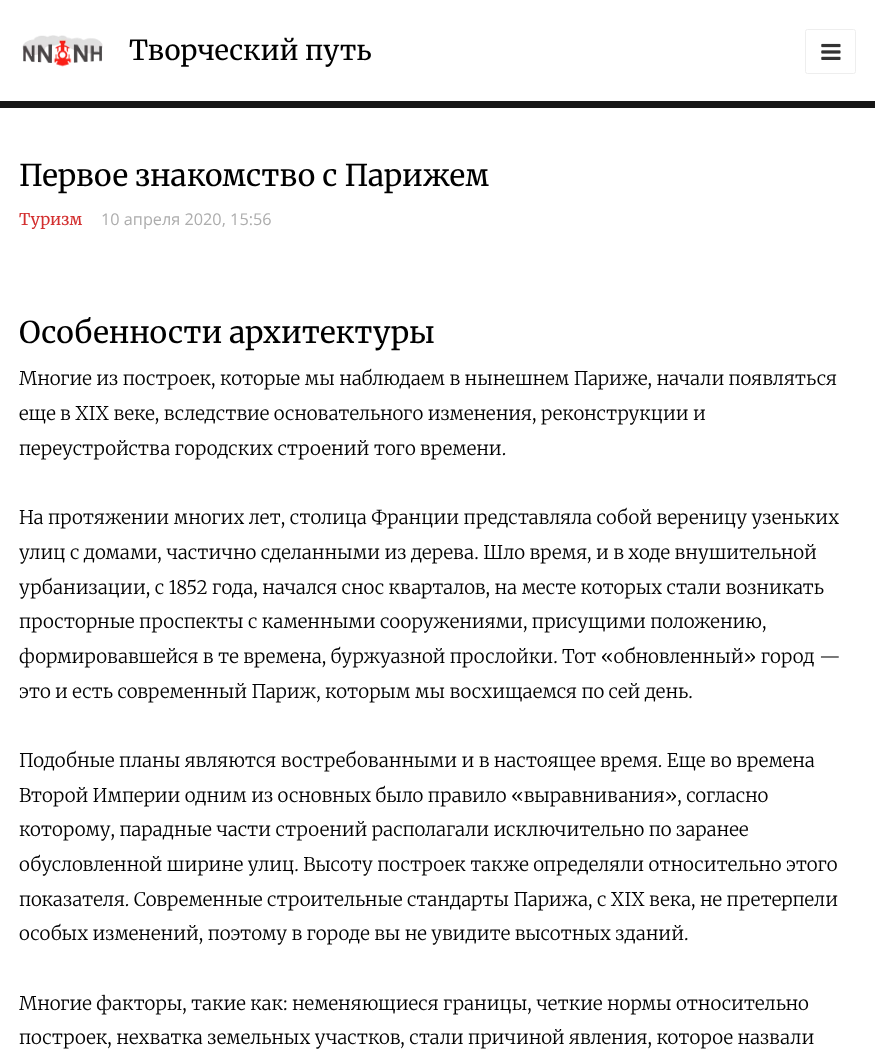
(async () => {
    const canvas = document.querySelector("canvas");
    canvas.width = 875;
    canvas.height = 1052;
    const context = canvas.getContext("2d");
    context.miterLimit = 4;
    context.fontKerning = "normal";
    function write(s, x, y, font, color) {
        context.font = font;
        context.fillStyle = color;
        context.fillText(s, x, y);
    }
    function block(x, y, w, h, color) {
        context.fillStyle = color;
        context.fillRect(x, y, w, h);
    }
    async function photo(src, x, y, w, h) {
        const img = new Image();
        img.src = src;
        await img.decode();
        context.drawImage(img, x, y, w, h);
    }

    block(0, 0, 875, 1052, "rgb(255, 255, 255)");
    block(0, 101, 875, 7, "rgb(22, 22, 22)");
    await photo("media/1.png", 22, 35, 81, 32);
    write("Творческий путь", 129, 60, "27.5px Merriweather", "rgb(0, 0, 0)");
    context.beginPath();
    context.roundRect(805.5, 29.5, 50, 44, 2);
    context.strokeStyle = "rgb(238, 238, 238)";
    context.stroke();
    await photo("media/2.png", 821, 43, 20, 17);
    write("Первое знакомство с Парижем", 19, 186, "30px Merriweather", "rgb(0, 0, 0)");
    write("Туризм", 19, 225, "16.25px Merriweather", "rgb(211, 47, 47)");
    write("10 апреля 2020, 15:56", 101, 225, "16.25px Open Sans", "rgb(173, 173, 173)");
    write("Особенности архитектуры", 19, 343, "30px Merriweather", "rgb(0, 0, 0)");
    write("Многие из построек, которые мы наблюдаем в нынешнем Париже, начали появляться", 19, 385, "300 18.75px Merriweather", "rgb(0, 0, 0)");
    write("еще в XIX веке, вследствие основательного изменения, реконструкции и", 19, 420, "300 18.75px Merriweather", "rgb(0, 0, 0)");
    write("переустройства городских строений того времени.", 19, 455, "300 18.75px Merriweather", "rgb(0, 0, 0)");
    write("На протяжении многих лет, столица Франции представляла собой вереницу узеньких", 19, 524, "300 18.75px Merriweather", "rgb(0, 0, 0)");
    write("улиц с домами, частично сделанными из дерева. Шло время, и в ходе внушительной", 19, 559, "300 18.75px Merriweather", "rgb(0, 0, 0)");
    write("урбанизации, с 1852 года, начался снос кварталов, на месте которых стали возникать", 19, 594, "300 18.75px Merriweather", "rgb(0, 0, 0)");
    write("просторные проспекты с каменными сооружениями, присущими положению,", 19, 628, "300 18.75px Merriweather", "rgb(0, 0, 0)");
    write("формировавшейся в те времена, буржуазной прослойки. Тот «обновленный» город —", 19, 663, "300 18.75px Merriweather", "rgb(0, 0, 0)");
    write("это и есть современный Париж, которым мы восхищаемся по сей день.", 19, 698, "300 18.75px Merriweather", "rgb(0, 0, 0)");
    write("Подобные планы являются востребованными и в настоящее время. Еще во времена", 19, 767, "300 18.75px Merriweather", "rgb(0, 0, 0)");
    write("Второй Империи одним из основных было правило «выравнивания», согласно", 19, 802, "300 18.75px Merriweather", "rgb(0, 0, 0)");
    write("которому, парадные части строений располагали исключительно по заранее", 19, 836, "300 18.75px Merriweather", "rgb(0, 0, 0)");
    write("обусловленной ширине улиц. Высоту построек также определяли относительно этого", 19, 871, "300 18.75px Merriweather", "rgb(0, 0, 0)");
    write("показателя. Современные строительные стандарты Парижа, с XIX века, не претерпели", 19, 906, "300 18.75px Merriweather", "rgb(0, 0, 0)");
    write("особых изменений, поэтому в городе вы не увидите высотных зданий.", 19, 940, "300 18.75px Merriweather", "rgb(0, 0, 0)");
    write("Многие факторы, такие как: неменяющиеся границы, четкие нормы относительно", 19, 1010, "300 18.75px Merriweather", "rgb(0, 0, 0)");
    write("построек, нехватка земельных участков, стали причиной явления, которое назвали", 19, 1044, "300 18.75px Merriweather", "rgb(0, 0, 0)");
})();
